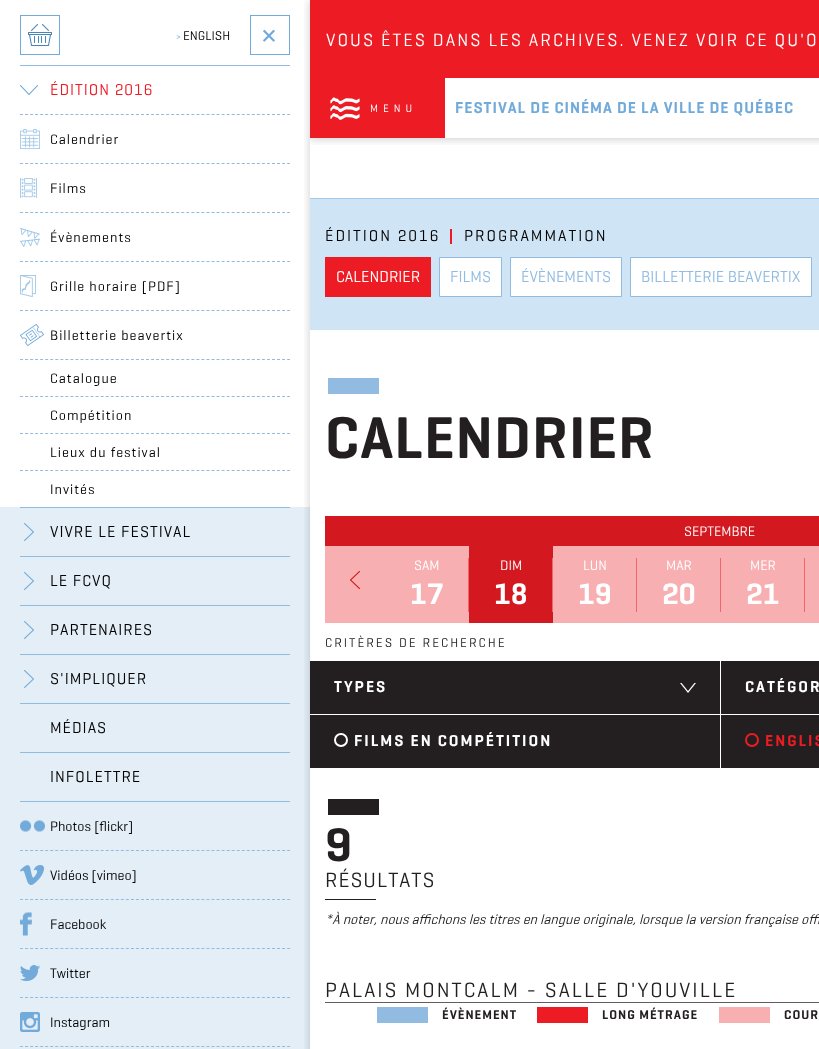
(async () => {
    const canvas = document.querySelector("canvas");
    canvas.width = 819;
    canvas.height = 1049;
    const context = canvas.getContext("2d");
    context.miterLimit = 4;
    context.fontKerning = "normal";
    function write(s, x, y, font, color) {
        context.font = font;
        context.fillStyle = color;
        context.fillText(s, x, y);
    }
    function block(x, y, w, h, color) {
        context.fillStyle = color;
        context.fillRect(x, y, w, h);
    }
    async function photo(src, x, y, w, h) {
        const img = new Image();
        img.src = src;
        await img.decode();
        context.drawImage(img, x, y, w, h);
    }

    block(0, 0, 819, 1049, "rgb(255, 255, 255)");
    block(0, 507, 310, 542, "rgb(227, 238, 247)");
    context.strokeStyle = "rgb(114, 170, 217)";
    context.strokeRect(20.5, 15.5, 39, 39);
    await photo("media/1.png", 28, 24, 24, 22);
    write(">", 176, 40, "9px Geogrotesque", "rgb(114, 170, 217)");
    write("ENGLISH", 183, 40, "13px Geogrotesque", "rgb(0, 0, 0)");
    context.strokeRect(250.5, 15.5, 39, 39);
    context.font = "36px Geogrotesque";
    context.fillStyle = "rgb(114, 170, 217)";
    context.save();
    context.translate(253, 37);
    context.rotate(45 * Math.PI / 180);
    context.fillText("+", 0, 0);
    context.restore();
    block(20, 65, 270, 1, "rgb(145, 187, 224)");
    await photo("media/2.png", 20, 85, 18, 10);
    context.letterSpacing = "1px";
    write("ÉDITION 2016", 50, 95, "16px Geogrotesque", "rgb(237, 28, 36)");
    await photo("media/3.png", 20, 129, 20, 20);
    context.beginPath();
    context.moveTo(20, 114.5);
    context.lineTo(290, 114.5);
    context.strokeStyle = "rgb(145, 187, 224)";
    context.setLineDash([3, 2.04]);
    context.stroke();
    write("Calendrier", 50, 144, "14px Geogrotesque", "rgb(0, 0, 0)");
    await photo("media/4.png", 20, 178, 17, 20);
    context.beginPath();
    context.moveTo(20, 163.5);
    context.lineTo(290, 163.5);
    context.stroke();
    write("Films", 50, 193, "14px Geogrotesque", "rgb(0, 0, 0)");
    await photo("media/5.png", 20, 228, 20, 19);
    context.beginPath();
    context.moveTo(20, 212.5);
    context.lineTo(290, 212.5);
    context.stroke();
    write("Évènements", 50, 242, "14px Geogrotesque", "rgb(0, 0, 0)");
    await photo("media/6.png", 20, 275, 16, 22);
    context.beginPath();
    context.moveTo(20, 261.5);
    context.lineTo(290, 261.5);
    context.stroke();
    write("Grille horaire [PDF]", 50, 291, "14px Geogrotesque", "rgb(0, 0, 0)");
    await photo("media/7.png", 20, 324, 24, 22);
    context.beginPath();
    context.moveTo(20, 310.5);
    context.lineTo(290, 310.5);
    context.stroke();
    write("Billetterie beavertix", 50, 340, "14px Geogrotesque", "rgb(0, 0, 0)");
    context.beginPath();
    context.moveTo(20, 359.5);
    context.lineTo(290, 359.5);
    context.stroke();
    write("Catalogue", 50, 383, "14px Geogrotesque", "rgb(0, 0, 0)");
    context.beginPath();
    context.moveTo(20, 396.5);
    context.lineTo(290, 396.5);
    context.stroke();
    write("Compétition", 50, 420, "14px Geogrotesque", "rgb(0, 0, 0)");
    context.beginPath();
    context.moveTo(20, 433.5);
    context.lineTo(290, 433.5);
    context.stroke();
    write("Lieux du festival", 50, 457, "14px Geogrotesque", "rgb(0, 0, 0)");
    context.beginPath();
    context.moveTo(20, 470.5);
    context.lineTo(290, 470.5);
    context.stroke();
    write("Invités", 50, 494, "14px Geogrotesque", "rgb(0, 0, 0)");
    block(20, 507, 270, 1, "rgb(145, 187, 224)");
    await photo("media/8.png", 24, 523, 10, 18);
    write("VIVRE LE FESTIVAL", 50, 537, "16px Geogrotesque", "rgb(0, 0, 0)");
    block(20, 556, 270, 1, "rgb(145, 187, 224)");
    await photo("media/8.png", 24, 572, 10, 18);
    write("LE FCVQ", 50, 586, "16px Geogrotesque", "rgb(0, 0, 0)");
    block(20, 605, 270, 1, "rgb(145, 187, 224)");
    await photo("media/8.png", 24, 621, 10, 18);
    write("PARTENAIRES", 50, 635, "16px Geogrotesque", "rgb(0, 0, 0)");
    block(20, 654, 270, 1, "rgb(145, 187, 224)");
    await photo("media/8.png", 24, 670, 10, 18);
    write("S'IMPLIQUER", 50, 684, "16px Geogrotesque", "rgb(0, 0, 0)");
    block(20, 703, 270, 1, "rgb(145, 187, 224)");
    write("MÉDIAS", 50, 733, "16px Geogrotesque", "rgb(0, 0, 0)");
    block(20, 752, 270, 1, "rgb(145, 187, 224)");
    block(20, 801, 270, 1, "rgb(145, 187, 224)");
    write("INFOLETTRE", 50, 782, "16px Geogrotesque", "rgb(0, 0, 0)");
    await photo("media/9.png", 20, 820, 25, 12);
    context.letterSpacing = "0px";
    write("Photos [flickr]", 50, 831, "14px Geogrotesque", "rgb(0, 0, 0)");
    context.beginPath();
    context.moveTo(20, 850.5);
    context.lineTo(290, 850.5);
    context.stroke();
    await photo("media/10.png", 20, 865, 24, 20);
    write("Vidéos [vimeo]", 50, 880, "14px Geogrotesque", "rgb(0, 0, 0)");
    context.beginPath();
    context.moveTo(20, 899.5);
    context.lineTo(290, 899.5);
    context.stroke();
    await photo("media/11.png", 20, 912, 12, 24);
    write("Facebook", 50, 929, "14px Geogrotesque", "rgb(0, 0, 0)");
    context.beginPath();
    context.moveTo(20, 948.5);
    context.lineTo(290, 948.5);
    context.stroke();
    await photo("media/12.png", 20, 965, 20, 16);
    write("Twitter", 50, 978, "14px Geogrotesque", "rgb(0, 0, 0)");
    context.beginPath();
    context.moveTo(20, 997.5);
    context.lineTo(290, 997.5);
    context.stroke();
    await photo("media/13.png", 20, 1012, 20, 20);
    write("Instagram", 50, 1027, "14px Geogrotesque", "rgb(0, 0, 0)");
    context.beginPath();
    context.moveTo(20, 1046.5);
    context.lineTo(290, 1046.5);
    context.stroke();
    context.save();
    context.beginPath();
    context.rect(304, 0, 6, 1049);
    context.clip();
    context.fillStyle = "rgba(0, 0, 0, 0.2)";
    context.filter = "blur(5px)";
    context.beginPath();
    context.rect(310, 0, 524, 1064);
    context.fill();
    context.filter = "none";
    context.restore();
    context.save();
    context.beginPath();
    context.rect(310, 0, 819, 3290);
    context.clip();
    context.beginPath();
    context.rect(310, 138, 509, 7);
    context.clip();
    context.fillStyle = "rgba(0, 0, 0, 0.2)";
    context.filter = "blur(5px)";
    context.beginPath();
    context.rect(310, 79, 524, 60);
    context.fill();
    context.filter = "none";
    context.restore();
    block(310, 0, 509, 78, "rgb(237, 28, 36)");
    context.letterSpacing = "2px";
    write("VOUS ÊTES DANS LES ARCHIVES. VENEZ VOIR CE QU'O", 326, 46, "18px Geogrotesque", "rgb(255, 255, 255)");
    block(310, 78, 135, 60, "rgb(237, 28, 36)");
    await photo("media/14.png", 330, 97, 30, 23);
    context.letterSpacing = "5px";
    write("MENU", 370, 112, "11px Geogrotesque", "rgb(255, 255, 255)");
    context.letterSpacing = "1px";
    write("FESTIVAL DE CINÉMA DE LA VILLE DE QUÉBEC", 455, 113, "600 16px Geogrotesque", "rgb(114, 170, 217)");
    block(310, 199, 509, 131, "rgb(207, 228, 245)");
    block(310, 198, 509, 1, "rgb(160, 201, 236)");
    context.letterSpacing = "2px";
    write("ÉDITION 2016", 325, 241, "16px Geogrotesque", "rgb(0, 0, 0)");
    block(450, 229, 2, 15, "rgb(237, 28, 36)");
    write("PROGRAMMATION", 464, 241, "16px Geogrotesque", "rgb(0, 0, 0)");
    block(325, 257, 106, 40, "rgb(237, 28, 36)");
    context.letterSpacing = "0px";
    write("CALENDRIER", 336, 282, "16px Geogrotesque", "rgb(255, 255, 255)");
    context.beginPath();
    context.rect(439.5, 257.5, 62, 39);
    context.fill();
    context.setLineDash([]);
    context.stroke();
    write("FILMS", 450, 282, "16px Geogrotesque", "rgb(145, 187, 224)");
    context.fillStyle = "rgb(255, 255, 255)";
    context.beginPath();
    context.rect(510.5, 257.5, 111, 39);
    context.fill();
    context.stroke();
    write("ÉVÈNEMENTS", 521, 282, "16px Geogrotesque", "rgb(145, 187, 224)");
    context.fillStyle = "rgb(255, 255, 255)";
    context.beginPath();
    context.rect(630.5, 257.5, 181, 39);
    context.fill();
    context.stroke();
    write("BILLETTERIE BEAVERTIX", 641, 282, "16px Geogrotesque", "rgb(145, 187, 224)");
    block(328, 378, 51, 16, "rgb(145, 187, 224)");
    context.letterSpacing = "1px";
    write("CALENDRIER", 325, 458, "600 60px Geogrotesque", "rgb(35, 31, 32)");
    block(325, 516, 494, 30, "rgb(211, 24, 31)");
    context.letterSpacing = "0px";
    write("SEPTEMBRE", 684, 536, "14px Geogrotesque", "rgb(255, 255, 255)");
    block(325, 546, 494, 77, "rgb(248, 175, 178)");
    await photo("media/15.png", 350, 571, 10, 18);
    write("SAM", 414, 570, "14px Geogrotesque", "rgb(255, 255, 255)");
    block(468, 558, 1, 54, "rgb(242, 101, 107)");
    write("17", 410, 604, "600 30px Geogrotesque", "rgb(255, 255, 255)");
    block(469, 546, 84, 77, "rgb(211, 24, 31)");
    write("DIM", 500, 570, "14px Geogrotesque", "rgb(255, 255, 255)");
    block(552, 558, 1, 54, "rgb(242, 101, 107)");
    write("18", 494, 604, "600 30px Geogrotesque", "rgb(255, 255, 255)");
    write("LUN", 583, 570, "14px Geogrotesque", "rgb(255, 255, 255)");
    block(636, 558, 1, 54, "rgb(242, 101, 107)");
    write("19", 578, 604, "600 30px Geogrotesque", "rgb(255, 255, 255)");
    write("MAR", 666, 570, "14px Geogrotesque", "rgb(255, 255, 255)");
    block(720, 558, 1, 54, "rgb(242, 101, 107)");
    write("20", 662, 604, "600 30px Geogrotesque", "rgb(255, 255, 255)");
    write("MER", 750, 570, "14px Geogrotesque", "rgb(255, 255, 255)");
    block(804, 558, 1, 54, "rgb(242, 101, 107)");
    write("21", 746, 604, "600 30px Geogrotesque", "rgb(255, 255, 255)");
    context.letterSpacing = "2px";
    write("CRITÈRES DE RECHERCHE", 325, 647, "13px Geogrotesque", "rgb(35, 31, 32)");
    block(310, 661, 509, 107, "rgb(35, 31, 32)");
    block(310, 714, 509, 1, "rgb(255, 255, 255)");
    write("TYPES", 334, 692, "600 16px Geogrotesque", "rgb(255, 255, 255)");
    context.beginPath();
    context.moveTo(680, 683);
    context.lineTo(696, 683);
    context.lineTo(688, 693);
    context.closePath();
    context.fill();
    context.fillStyle = "rgb(35, 31, 32)";
    context.beginPath();
    context.moveTo(680, 681);
    context.lineTo(696, 681);
    context.lineTo(688, 691);
    context.closePath();
    context.fill();
    block(720, 661, 1, 108, "rgb(255, 255, 255)");
    write("CATÉGOR", 745, 692, "600 16px Geogrotesque", "rgb(255, 255, 255)");
    context.beginPath();
    context.arc(341, 740, 6, 0, Math.PI * 2);
    context.strokeStyle = "rgb(255, 255, 255)";
    context.lineWidth = 2;
    context.stroke();
    write("FILMS EN COMPÉTITION", 354, 746, "600 16px Geogrotesque", "rgb(255, 255, 255)");
    context.beginPath();
    context.arc(752, 740, 6, 0, Math.PI * 2);
    context.strokeStyle = "rgb(237, 28, 36)";
    context.stroke();
    write("ENGLIS", 765, 746, "600 16px Geogrotesque", "rgb(237, 28, 36)");
    block(328, 799, 51, 16, "rgb(35, 31, 32)");
    write("9", 325, 861, "600 48px Geogrotesque", "rgb(35, 31, 32)");
    context.letterSpacing = "1px";
    write("RÉSULTATS", 325, 887, "21px Geogrotesque", "rgb(35, 31, 32)");
    block(325, 899, 51, 1, "rgb(35, 31, 32)");
    context.letterSpacing = "0px";
    write("*À noter, nous affichons les titres en langue originale, lorsque la version française offi", 325, 924, "italic 14px Geogrotesque", "rgb(35, 31, 32)");
    block(325, 1002, 494, 1, "rgb(95, 93, 94)");
    context.letterSpacing = "2px";
    write("PALAIS MONTCALM - SALLE D'YOUVILLE", 325, 997, "21px Geogrotesque", "rgb(35, 31, 32)");
    block(377, 1007, 51, 16, "rgb(145, 187, 224)");
    context.letterSpacing = "1px";
    write("ÉVÈNEMENT", 442, 1019, "600 13px Geogrotesque", "rgb(35, 31, 32)");
    block(537, 1007, 51, 16, "rgb(237, 28, 36)");
    write("LONG MÉTRAGE", 602, 1019, "600 13px Geogrotesque", "rgb(35, 31, 32)");
    block(719, 1007, 51, 16, "rgb(248, 175, 178)");
    write("COUR", 784, 1019, "600 13px Geogrotesque", "rgb(35, 31, 32)");
})();
